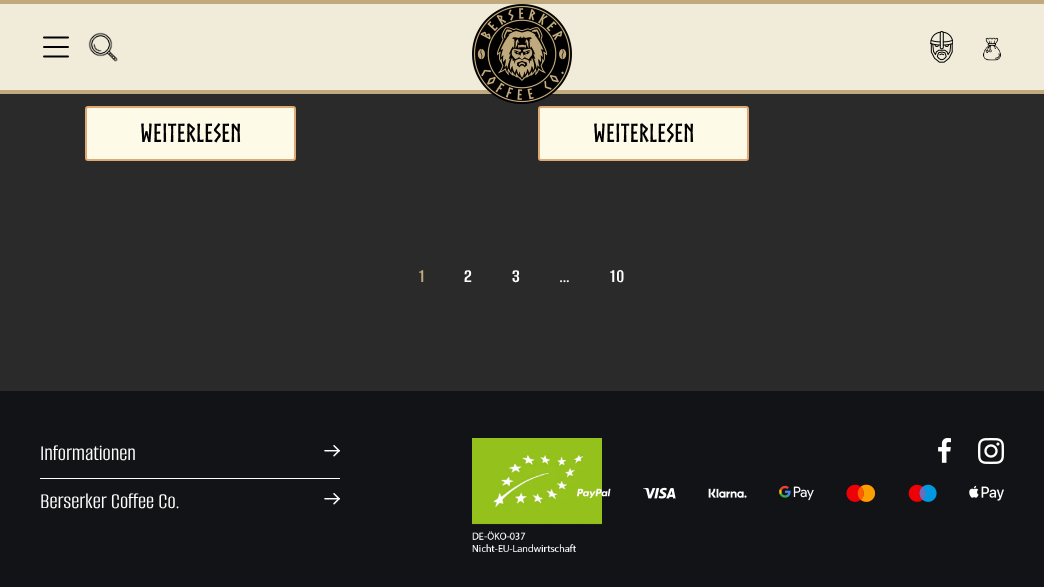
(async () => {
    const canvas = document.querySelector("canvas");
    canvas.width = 1044;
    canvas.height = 587;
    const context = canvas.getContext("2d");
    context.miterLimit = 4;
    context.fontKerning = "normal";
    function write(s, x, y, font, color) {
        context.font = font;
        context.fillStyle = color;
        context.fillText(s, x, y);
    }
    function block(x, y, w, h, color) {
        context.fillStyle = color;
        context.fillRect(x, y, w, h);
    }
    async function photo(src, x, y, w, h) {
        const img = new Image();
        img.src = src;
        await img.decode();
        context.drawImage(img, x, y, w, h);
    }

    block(0, 0, 1044, 587, "rgb(42, 42, 42)");
    block(0, 4, 1044, 86, "rgb(241, 236, 218)");
    block(0, 0, 1044, 4, "rgb(192, 169, 125)");
    block(0, 90, 1044, 4, "rgb(192, 169, 125)");
    context.beginPath();
    context.moveTo(44, 37.5);
    context.lineTo(68, 37.5);
    context.moveTo(44, 47);
    context.lineTo(68, 47);
    context.moveTo(44, 56.5);
    context.lineTo(68, 56.5);
    context.strokeStyle = "rgb(0, 0, 0)";
    context.lineWidth = 2;
    context.lineCap = "round";
    context.lineJoin = "round";
    context.stroke();
    await photo("media/1.png", 88, 32, 30, 30);
    await photo("media/2.png", 472, 4, 100, 100);
    await photo("media/3.png", 930, 31, 23, 32);
    await photo("media/4.png", 983, 37, 18, 24);
    context.fillStyle = "rgb(253, 250, 232)";
    context.beginPath();
    context.roundRect(86, 107, 209, 53, 2);
    context.fill();
    context.strokeStyle = "rgb(224, 168, 114)";
    context.lineJoin = "miter";
    context.stroke();
    write("weiterlesen", 140, 142, "bold 25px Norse", "rgb(0, 0, 0)");
    context.fillStyle = "rgb(253, 250, 232)";
    context.beginPath();
    context.roundRect(539, 107, 209, 53, 2);
    context.fill();
    context.stroke();
    write("weiterlesen", 593, 142, "bold 25px Norse", "rgb(0, 0, 0)");
    context.letterSpacing = "1px";
    write("1", 419, 282, "600 20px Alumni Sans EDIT", "rgb(192, 169, 125)");
    write("2", 464, 282, "600 20px Alumni Sans EDIT", "rgb(255, 255, 255)");
    write("3", 512, 282, "600 20px Alumni Sans EDIT", "rgb(255, 255, 255)");
    write("…", 559, 282, "600 20px Alumni Sans EDIT", "rgb(255, 255, 255)");
    write("10", 610, 282, "600 20px Alumni Sans EDIT", "rgb(255, 255, 255)");
    block(0, 391, 1044, 196, "rgb(17, 19, 22)");
    block(40, 478, 300, 1, "rgb(255, 255, 255)");
    context.letterSpacing = "0px";
    write("Informationen", 40, 460, "23px Alumni Sans EDIT", "rgb(255, 255, 255)");
    await photo("media/5.png", 324, 445, 16, 12);
    write("Berserker Coffee Co.", 40, 508, "23px Alumni Sans EDIT", "rgb(255, 255, 255)");
    await photo("media/5.png", 324, 493, 16, 12);
    await photo("media/6.png", 472, 438, 130, 114);
    await photo("media/7.png", 938, 438, 13, 25);
    await photo("media/8.png", 978, 438, 26, 26);
    await photo("media/9.png", 577, 488, 34, 10);
    await photo("media/10.png", 643, 487, 33, 12);
    await photo("media/11.png", 708, 488, 39, 10);
    await photo("media/12.png", 779, 485, 35, 16);
    await photo("media/13.png", 846, 484, 30, 18);
    await photo("media/14.png", 908, 484, 29, 18);
    await photo("media/15.png", 969, 485, 35, 16);
})();
